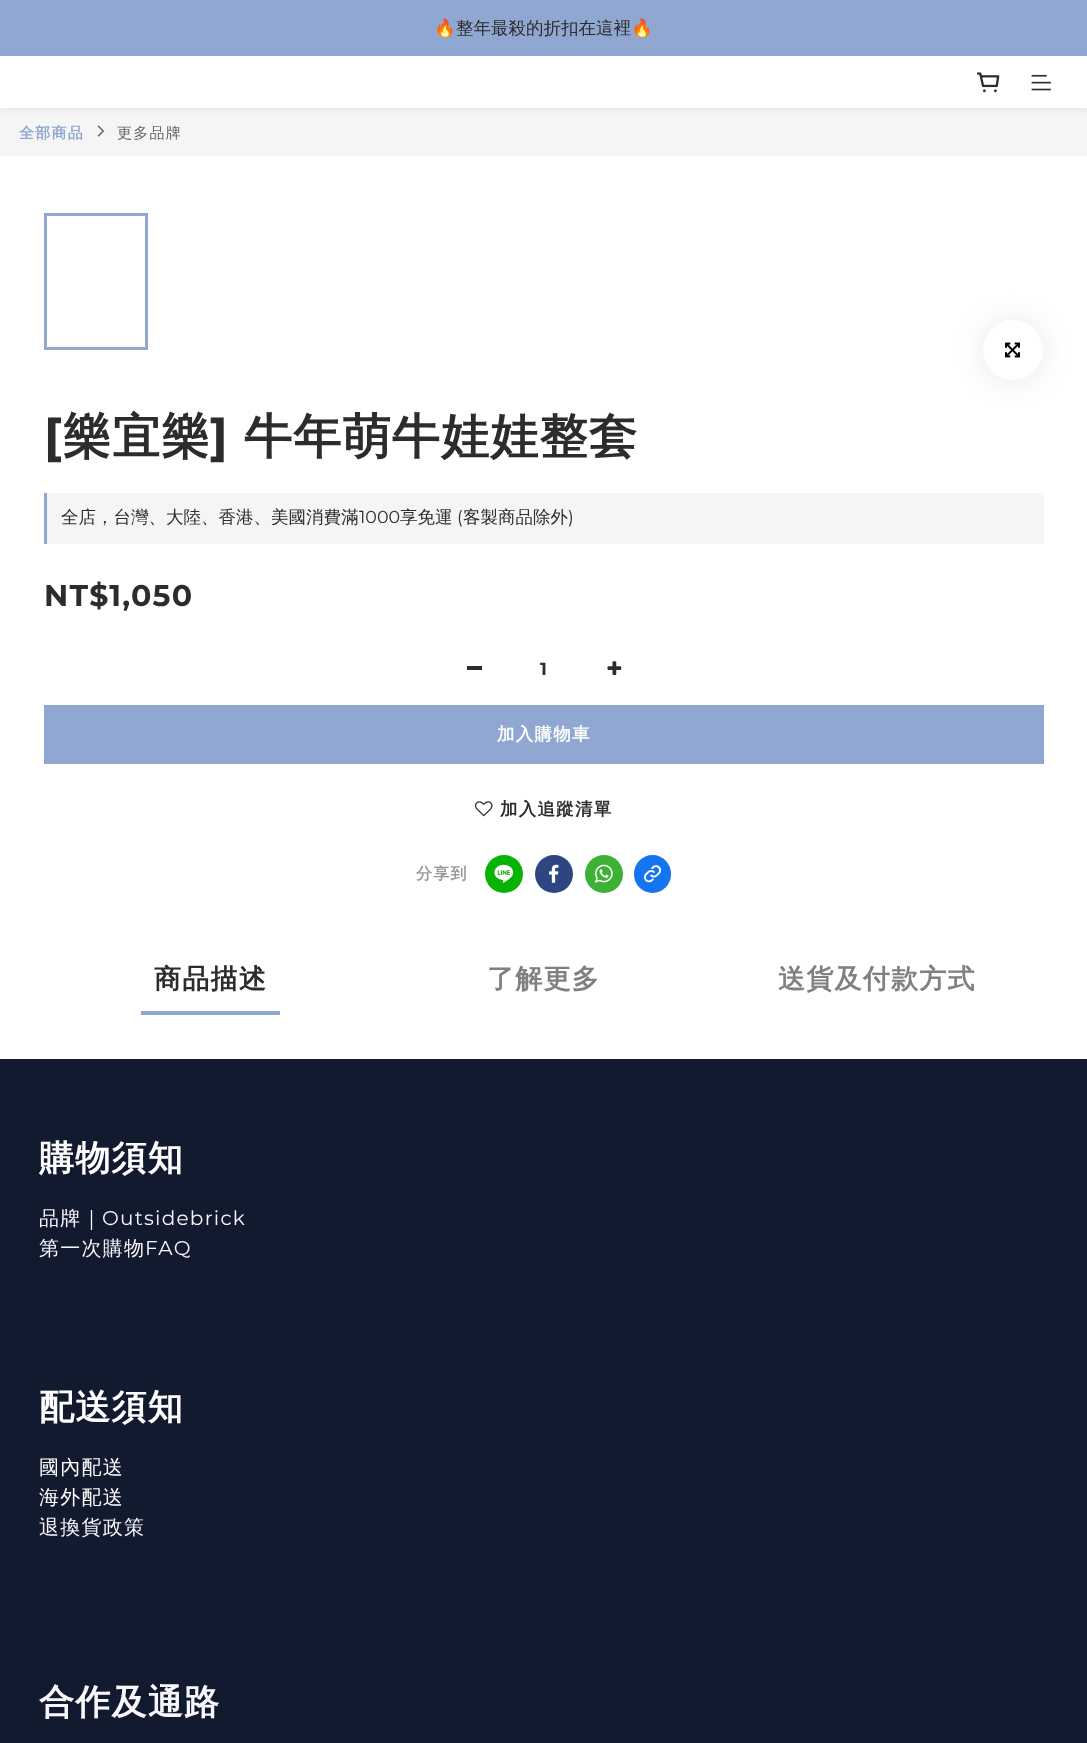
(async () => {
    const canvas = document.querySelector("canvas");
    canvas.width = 1087;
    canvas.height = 1743;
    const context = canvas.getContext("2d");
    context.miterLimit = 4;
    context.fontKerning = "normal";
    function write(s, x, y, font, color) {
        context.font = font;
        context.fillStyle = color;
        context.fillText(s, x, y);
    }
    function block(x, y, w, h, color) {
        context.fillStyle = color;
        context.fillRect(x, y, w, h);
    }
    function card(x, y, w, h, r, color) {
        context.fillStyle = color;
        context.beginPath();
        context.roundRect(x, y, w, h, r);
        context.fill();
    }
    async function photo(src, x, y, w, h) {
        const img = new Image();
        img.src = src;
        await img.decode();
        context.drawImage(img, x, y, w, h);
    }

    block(0, 0, 1087, 1743, "rgb(255, 255, 255)");
    block(0, 0, 1087, 56, "rgb(144, 167, 209)");
    write("🔥", 434, 34, "17.5px Noto Color Emoji", "rgb(44, 44, 44)");
    write("整年最殺的折扣在這裡", 456, 34, "500 17.5px WenQuanYi Zen Hei", "rgb(44, 44, 44)");
    write("🔥", 631, 34, "17.5px Noto Color Emoji", "rgb(44, 44, 44)");
    block(0, 108, 1087, 48, "rgb(245, 245, 245)");
    context.fillStyle = "rgba(0, 0, 0, 0.06)";
    context.filter = "blur(4px)";
    context.beginPath();
    context.rect(0, 59, 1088, 51);
    context.fill();
    context.filter = "none";
    block(0, 56, 1087, 52, "rgb(255, 255, 255)");
    await photo("media/1.png", 977, 72, 23, 21);
    await photo("media/2.png", 1031, 74, 20, 17);
    context.letterSpacing = "1.25px";
    write("全部商品", 19, 138, "bold 15px WenQuanYi Zen Hei", "rgb(144, 167, 209)");
    await photo("media/3.png", 97, 125, 8, 12);
    write("更多品牌", 117, 138, "500 15px WenQuanYi Zen Hei", "rgb(102, 102, 102)");
    context.strokeStyle = "rgb(144, 167, 209)";
    context.lineWidth = 3;
    context.strokeRect(45.5, 214.5, 101, 134);
    context.fillStyle = "rgba(0, 0, 0, 0.09)";
    context.filter = "blur(15px)";
    context.beginPath();
    context.roundRect(983, 321, 60, 60, 30);
    context.fill();
    context.filter = "none";
    context.fillStyle = "rgb(255, 255, 255)";
    context.beginPath();
    context.arc(1013, 350, 30, 0, Math.PI * 2);
    context.fill();
    await photo("media/4.png", 1005, 342, 15, 16);
    write("[", 44, 453, "bold 48px Montserrat", "rgb(44, 44, 44)");
    write("樂宜樂", 63, 453, "bold 48px WenQuanYi Zen Hei", "rgb(44, 44, 44)");
    write("]", 210, 453, "bold 48px Montserrat", "rgb(44, 44, 44)");
    write("牛年萌牛娃娃整套", 244, 453, "bold 48px WenQuanYi Zen Hei", "rgb(44, 44, 44)");
    block(47, 493, 997, 51, "rgb(245, 245, 245)");
    block(44, 493, 3, 51, "rgb(144, 167, 209)");
    context.letterSpacing = "0px";
    write("全店，台灣、大陸、香港、美國消費滿", 61, 523, "500 17.5px WenQuanYi Zen Hei", "rgb(44, 44, 44)");
    write("1000", 359, 523, "17.5px Montserrat", "rgb(44, 44, 44)");
    write("享免運", 400, 523, "500 17.5px WenQuanYi Zen Hei", "rgb(44, 44, 44)");
    write("(", 457, 523, "17.5px Montserrat", "rgb(44, 44, 44)");
    write("客製商品除外", 463, 523, "500 17.5px WenQuanYi Zen Hei", "rgb(44, 44, 44)");
    write(")", 568, 523, "17.5px Montserrat", "rgb(44, 44, 44)");
    context.letterSpacing = "1.25px";
    write("NT$1,050", 44, 606, "bold 30px Montserrat", "rgb(44, 44, 44)");
    block(467, 666, 15, 4, "rgb(44, 44, 44)");
    write("1", 540, 675, "bold 17.5px Montserrat", "rgb(44, 44, 44)");
    await photo("media/5.png", 607, 661, 15, 14);
    block(44, 705, 1000, 59, "rgb(144, 167, 209)");
    write("加入購物車", 497, 740, "bold 17.5px WenQuanYi Zen Hei", "rgb(253, 253, 253)");
    await photo("media/6.png", 475, 801, 18, 16);
    write("加入追蹤清單", 500, 815, "bold 17.5px WenQuanYi Zen Hei", "rgb(44, 44, 44)");
    write("分享到", 416, 879, "bold 16px WenQuanYi Zen Hei", "rgb(153, 153, 153)");
    context.fillStyle = "rgb(9, 179, 5)";
    context.beginPath();
    context.arc(504, 874, 19, 0, Math.PI * 2);
    context.fill();
    await photo("media/7.png", 494, 864, 20, 19);
    context.fillStyle = "rgb(45, 70, 130)";
    context.beginPath();
    context.arc(554, 874, 19, 0, Math.PI * 2);
    context.fill();
    await photo("media/8.png", 549, 864, 10, 19);
    context.fillStyle = "rgb(60, 177, 54)";
    context.beginPath();
    context.arc(604, 874, 19, 0, Math.PI * 2);
    context.fill();
    await photo("media/9.png", 594, 864, 19, 19);
    card(634, 855, 37, 38, 18.5, "rgb(21, 117, 240)");
    await photo("media/10.png", 643, 865, 19, 18);
    write("商品描述", 154, 988, "bold 27px WenQuanYi Zen Hei", "rgb(44, 44, 44)");
    block(141, 1011, 139, 4, "rgb(144, 167, 209)");
    write("了解更多", 487, 988, "bold 27px WenQuanYi Zen Hei", "rgb(128, 128, 128)");
    write("送貨及付款方式", 778, 988, "bold 27px WenQuanYi Zen Hei", "rgb(128, 128, 128)");
    block(0, 1059, 1087, 684, "rgb(18, 26, 47)");
    write("購物須知", 39, 1170, "bold 35px WenQuanYi Zen Hei", "rgb(253, 253, 253)");
    write("品牌｜", 39, 1225, "500 20px WenQuanYi Zen Hei", "rgb(247, 247, 251)");
    write("Outsidebrick", 102, 1225, "20px Montserrat", "rgb(247, 247, 251)");
    write("第一次購物", 39, 1255, "500 20px WenQuanYi Zen Hei", "rgb(247, 247, 251)");
    write("FAQ", 145, 1255, "20px Montserrat", "rgb(247, 247, 251)");
    write("配送須知", 39, 1419, "bold 35px WenQuanYi Zen Hei", "rgb(253, 253, 253)");
    write("國內配送", 39, 1474, "500 20px WenQuanYi Zen Hei", "rgb(253, 253, 253)");
    write("海外配送", 39, 1504, "500 20px WenQuanYi Zen Hei", "rgb(253, 253, 253)");
    write("退換貨政策", 39, 1534, "500 20px WenQuanYi Zen Hei", "rgb(247, 247, 251)");
    write("合作及通路", 39, 1714, "bold 35px WenQuanYi Zen Hei", "rgb(247, 247, 251)");
})();
